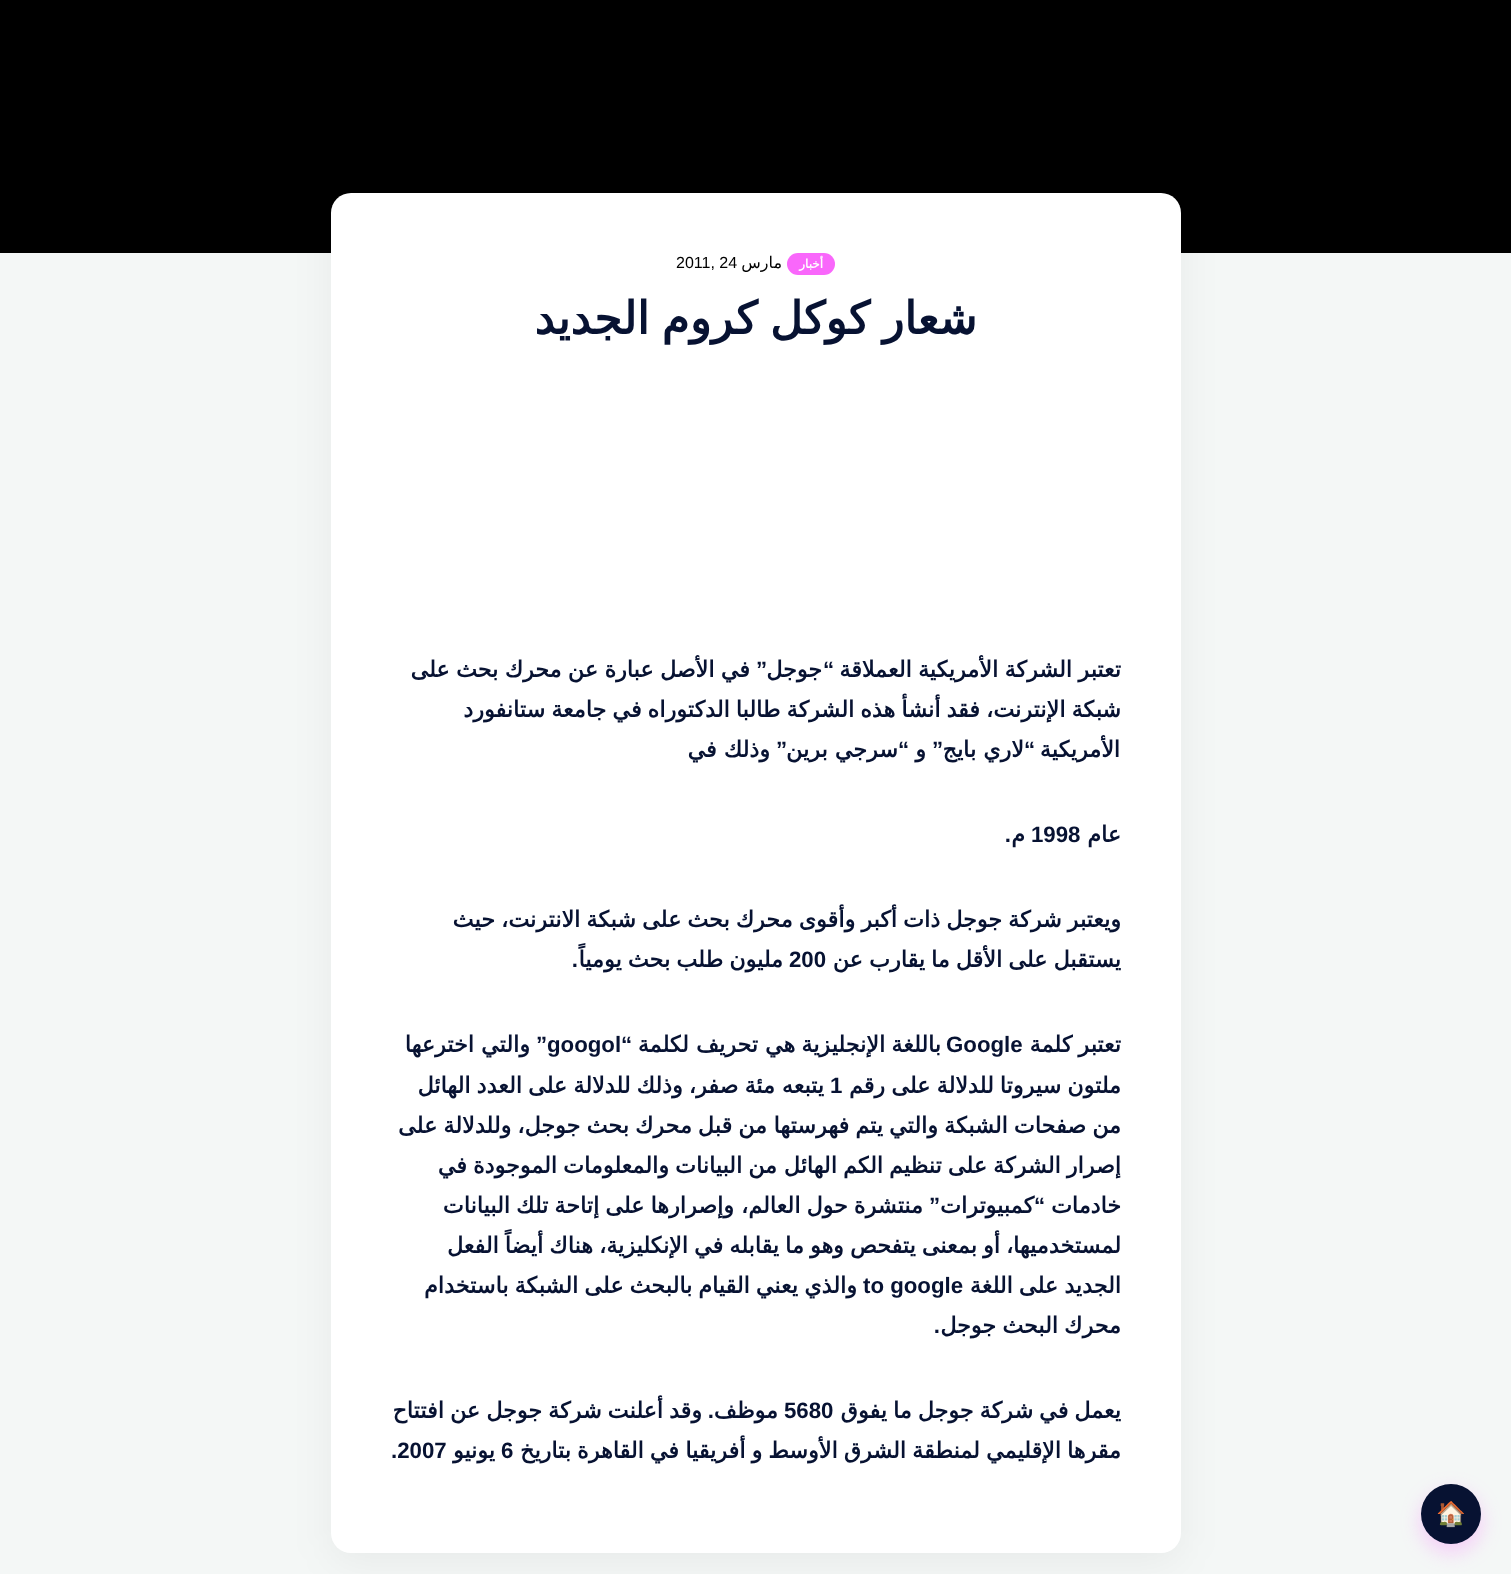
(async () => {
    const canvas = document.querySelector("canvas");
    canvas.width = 1511;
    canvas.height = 1574;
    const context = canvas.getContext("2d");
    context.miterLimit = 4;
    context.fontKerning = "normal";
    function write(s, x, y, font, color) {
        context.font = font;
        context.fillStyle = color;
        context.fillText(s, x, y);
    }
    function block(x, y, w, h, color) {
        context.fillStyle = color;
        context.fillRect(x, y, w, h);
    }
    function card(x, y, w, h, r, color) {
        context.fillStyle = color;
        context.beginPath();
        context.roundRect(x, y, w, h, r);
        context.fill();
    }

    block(0, 0, 1511, 1574, "rgb(244, 247, 246)");
    block(0, 0, 1511, 253, "rgb(0, 0, 0)");
    context.fillStyle = "rgba(0, 0, 0, 0.05)";
    context.filter = "blur(20px)";
    context.beginPath();
    context.roundRect(331, 203, 850, 1360, 20);
    context.fill();
    context.filter = "none";
    card(331, 193, 850, 1360, 20, "rgb(255, 255, 255)");
    card(787, 253, 48, 22, 11, "rgb(249, 103, 251)");
    context.direction = "rtl";
    write("أخبار", 823, 268, "bold 12px DejaVu Sans", "rgb(255, 255, 255)");
    write("مارس", 782, 268, "16px DejaVu Sans", "rgb(0, 0, 0)");
    context.direction = "ltr";
    write("2011, 24", 676, 268, "16px Liberation Sans", "rgb(0, 0, 0)");
    context.wordSpacing = "-2px";
    context.direction = "rtl";
    write("شعار كوكل كروم الجديد", 977, 334, "bold 45px DejaVu Sans", "rgb(7, 18, 50)");
    context.wordSpacing = "-0.75px";
    write("تعتبر الشركة الأمريكية العملاقة", 1121, 677, "bold 22.25px DejaVu Sans", "rgb(7, 18, 50)");
    context.wordSpacing = "0px";
    write("“", 834, 677, "bold 22.25px Liberation Sans", "rgb(7, 18, 50)");
    write("جوجل", 822, 677, "bold 22.25px DejaVu Sans", "rgb(7, 18, 50)");
    write("”", 767, 677, "bold 22.25px Liberation Sans", "rgb(7, 18, 50)");
    context.wordSpacing = "-0.75px";
    write("في الأصل عبارة عن محرك بحث على", 750, 677, "bold 22.25px DejaVu Sans", "rgb(7, 18, 50)");
    context.wordSpacing = "-1px";
    write("شبكة الإنترنت، فقد أنشأ هذه الشركة طالبا الدكتوراه في جامعة ستانفورد", 1121, 717, "bold 22.25px DejaVu Sans", "rgb(7, 18, 50)");
    context.wordSpacing = "0px";
    write("الأمريكية", 1120, 757, "bold 22.25px DejaVu Sans", "rgb(7, 18, 50)");
    write("“", 1035, 757, "bold 22.25px Liberation Sans", "rgb(7, 18, 50)");
    write("لاري بايج", 1024, 757, "bold 22.25px DejaVu Sans", "rgb(7, 18, 50)");
    write("”", 943, 757, "bold 22.25px Liberation Sans", "rgb(7, 18, 50)");
    write("“", 909, 757, "bold 22.25px Liberation Sans", "rgb(7, 18, 50)");
    write("”", 787, 757, "bold 22.25px Liberation Sans", "rgb(7, 18, 50)");
    write("وذلك في", 770, 757, "bold 22.25px DejaVu Sans", "rgb(7, 18, 50)");
    write("و", 926, 757, "bold 22.25px DejaVu Sans", "rgb(7, 18, 50)");
    write("سرجي برين", 898, 757, "bold 22.25px DejaVu Sans", "rgb(7, 18, 50)");
    write("عام", 1121, 842, "bold 22.25px DejaVu Sans", "rgb(7, 18, 50)");
    context.direction = "ltr";
    write("1998", 1031, 842, "bold 22.25px Liberation Sans", "rgb(7, 18, 50)");
    context.direction = "rtl";
    write("م", 1025, 842, "bold 22.25px DejaVu Sans", "rgb(7, 18, 50)");
    write(".", 1011, 842, "bold 22.25px Liberation Sans", "rgb(7, 18, 50)");
    context.wordSpacing = "-1px";
    write("ويعتبر شركة جوجل ذات أكبر وأقوى محرك بحث على شبكة الانترنت، حيث", 1121, 927, "bold 22.25px DejaVu Sans", "rgb(7, 18, 50)");
    write("يستقبل على الأقل ما يقارب عن", 1121, 967, "bold 22.25px DejaVu Sans", "rgb(7, 18, 50)");
    context.wordSpacing = "0px";
    context.direction = "ltr";
    write("200", 789, 967, "bold 22.25px Liberation Sans", "rgb(7, 18, 50)");
    context.wordSpacing = "-1px";
    context.direction = "rtl";
    write("مليون طلب بحث يومياً", 783, 967, "bold 22.25px DejaVu Sans", "rgb(7, 18, 50)");
    context.wordSpacing = "0px";
    write(".", 578, 967, "bold 22.25px Liberation Sans", "rgb(7, 18, 50)");
    context.wordSpacing = "-1px";
    write("تعتبر كلمة", 1121, 1052, "bold 22.25px DejaVu Sans", "rgb(7, 18, 50)");
    context.wordSpacing = "0px";
    context.direction = "ltr";
    write("Google", 946, 1052, "bold 22.25px Liberation Sans", "rgb(7, 18, 50)");
    context.wordSpacing = "-1px";
    context.direction = "rtl";
    write("باللغة الإنجليزية هي", 941, 1052, "bold 22.25px DejaVu Sans", "rgb(7, 18, 50)");
    context.wordSpacing = "0px";
    write("تحريف لكلمة", 758, 1052, "bold 22.25px DejaVu Sans", "rgb(7, 18, 50)");
    write("“", 632, 1052, "bold 22.25px Liberation Sans", "rgb(7, 18, 50)");
    context.direction = "ltr";
    write("googol", 547, 1052, "bold 22.25px Liberation Sans", "rgb(7, 18, 50)");
    context.direction = "rtl";
    write("”", 547, 1052, "bold 22.25px Liberation Sans", "rgb(7, 18, 50)");
    write("والتي اخترعها", 530, 1052, "bold 22.25px DejaVu Sans", "rgb(7, 18, 50)");
    context.wordSpacing = "-1px";
    write("ملتون سيروتا للدلالة على رقم", 1121, 1093, "bold 22.25px DejaVu Sans", "rgb(7, 18, 50)");
    context.wordSpacing = "0px";
    context.direction = "ltr";
    write("1", 830, 1093, "bold 22.25px Liberation Sans", "rgb(7, 18, 50)");
    context.direction = "rtl";
    write("يتبعه", 824, 1093, "bold 22.25px DejaVu Sans", "rgb(7, 18, 50)");
    context.wordSpacing = "-1px";
    write("مئة صفر، وذلك للدلالة على العدد الهائل", 775, 1093, "bold 22.25px DejaVu Sans", "rgb(7, 18, 50)");
    write("من صفحات الشبكة والتي يتم فهرستها", 1121, 1133, "bold 22.25px DejaVu Sans", "rgb(7, 18, 50)");
    write("من قبل محرك بحث جوجل، وللدلالة على", 767, 1133, "bold 22.25px DejaVu Sans", "rgb(7, 18, 50)");
    write("إصرار الشركة على تنظيم الكم الهائل", 1121, 1173, "bold 22.25px DejaVu Sans", "rgb(7, 18, 50)");
    write("من البيانات والمعلومات الموجودة في", 777, 1173, "bold 22.25px DejaVu Sans", "rgb(7, 18, 50)");
    context.wordSpacing = "0px";
    write("خادمات", 1121, 1213, "bold 22.25px DejaVu Sans", "rgb(7, 18, 50)");
    write("“", 1045, 1213, "bold 22.25px Liberation Sans", "rgb(7, 18, 50)");
    write("كمبيوترات", 1034, 1213, "bold 22.25px DejaVu Sans", "rgb(7, 18, 50)");
    write("”", 940, 1213, "bold 22.25px Liberation Sans", "rgb(7, 18, 50)");
    context.wordSpacing = "-1px";
    write("منتشرة حول العالم،", 923, 1213, "bold 22.25px DejaVu Sans", "rgb(7, 18, 50)");
    write("وإصرارها على إتاحة تلك البيانات", 734, 1213, "bold 22.25px DejaVu Sans", "rgb(7, 18, 50)");
    write("لمستخدميها، أو بمعنى يتفحص وهو ما", 1121, 1253, "bold 22.25px DejaVu Sans", "rgb(7, 18, 50)");
    write("يقابله في الإنكليزية، هناك أيضاً الفعل", 779, 1253, "bold 22.25px DejaVu Sans", "rgb(7, 18, 50)");
    write("الجديد على اللغة", 1121, 1293, "bold 22.25px DejaVu Sans", "rgb(7, 18, 50)");
    context.wordSpacing = "0px";
    context.direction = "ltr";
    write("to google", 863, 1293, "bold 22.25px Liberation Sans", "rgb(7, 18, 50)");
    context.direction = "rtl";
    write("والذي", 857, 1293, "bold 22.25px DejaVu Sans", "rgb(7, 18, 50)");
    context.wordSpacing = "-1px";
    write("يعني القيام بالبحث على الشبكة باستخدام", 798, 1293, "bold 22.25px DejaVu Sans", "rgb(7, 18, 50)");
    write("محرك البحث جوجل", 1121, 1333, "bold 22.25px DejaVu Sans", "rgb(7, 18, 50)");
    context.wordSpacing = "0px";
    write(".", 940, 1333, "bold 22.25px Liberation Sans", "rgb(7, 18, 50)");
    context.wordSpacing = "-1px";
    write("يعمل في شركة جوجل ما يفوق", 1121, 1418, "bold 22.25px DejaVu Sans", "rgb(7, 18, 50)");
    context.wordSpacing = "0px";
    context.direction = "ltr";
    write("5680", 784, 1418, "bold 22.25px Liberation Sans", "rgb(7, 18, 50)");
    context.direction = "rtl";
    write("موظف", 778, 1418, "bold 22.25px DejaVu Sans", "rgb(7, 18, 50)");
    write(".", 714, 1418, "bold 22.25px Liberation Sans", "rgb(7, 18, 50)");
    write("وقد", 702, 1418, "bold 22.25px DejaVu Sans", "rgb(7, 18, 50)");
    context.wordSpacing = "-1px";
    write("أعلنت شركة جوجل عن افتتاح", 663, 1418, "bold 22.25px DejaVu Sans", "rgb(7, 18, 50)");
    write("مقرها الإقليمي لمنطقة الشرق الأوسط و أفريقيا", 1121, 1458, "bold 22.25px DejaVu Sans", "rgb(7, 18, 50)");
    write("في القاهرة بتاريخ", 679, 1458, "bold 22.25px DejaVu Sans", "rgb(7, 18, 50)");
    context.wordSpacing = "0px";
    context.direction = "ltr";
    write("6", 501, 1458, "bold 22.25px Liberation Sans", "rgb(7, 18, 50)");
    context.direction = "rtl";
    write("يونيو", 495, 1458, "bold 22.25px DejaVu Sans", "rgb(7, 18, 50)");
    context.direction = "ltr";
    write(".2007", 391, 1458, "bold 22.25px Liberation Sans", "rgb(7, 18, 50)");
    context.fillStyle = "rgba(249, 103, 251, 0.3)";
    context.filter = "blur(10px)";
    context.beginPath();
    context.roundRect(1421, 1492, 60, 60, 30);
    context.fill();
    context.filter = "none";
    context.fillStyle = "rgb(7, 18, 50)";
    context.beginPath();
    context.arc(1451, 1514, 30, 0, Math.PI * 2);
    context.fill();
    write("🏠", 1436, 1522, "24px Noto Color Emoji", "rgb(255, 255, 255)");
})();
